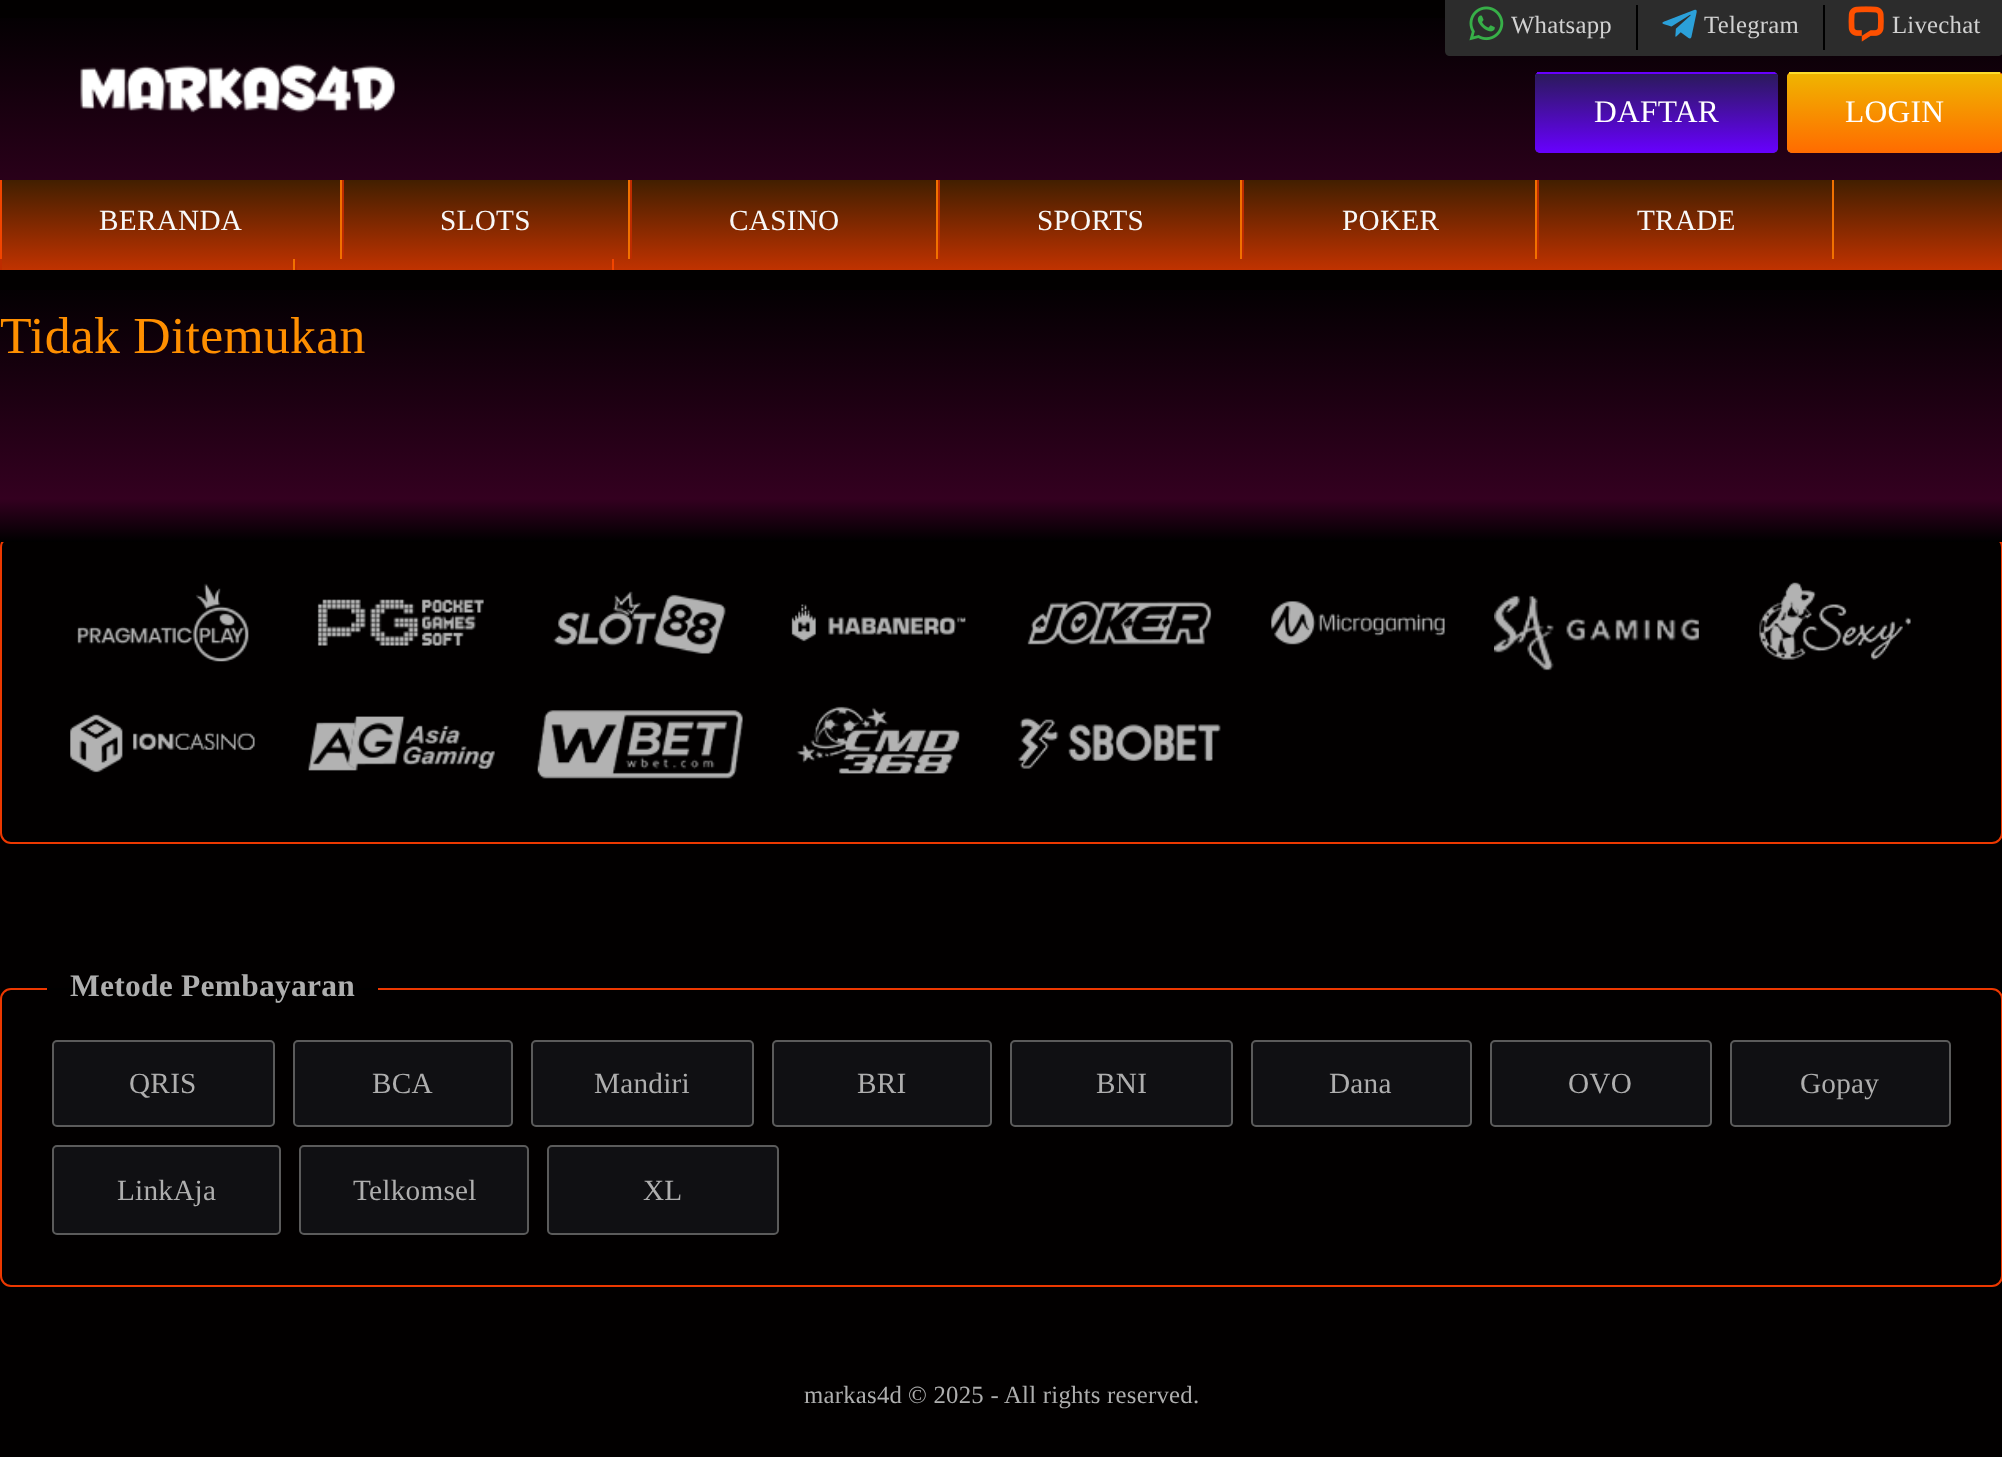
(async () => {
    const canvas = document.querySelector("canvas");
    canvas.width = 2002;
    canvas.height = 1457;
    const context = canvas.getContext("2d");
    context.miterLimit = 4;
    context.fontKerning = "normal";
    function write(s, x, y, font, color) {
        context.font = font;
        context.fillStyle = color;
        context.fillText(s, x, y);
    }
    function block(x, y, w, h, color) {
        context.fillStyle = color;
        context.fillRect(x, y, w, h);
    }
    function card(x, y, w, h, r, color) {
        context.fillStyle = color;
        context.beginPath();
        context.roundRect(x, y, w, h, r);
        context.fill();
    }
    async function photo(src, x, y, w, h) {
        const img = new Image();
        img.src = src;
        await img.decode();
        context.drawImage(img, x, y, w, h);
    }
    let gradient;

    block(0, 0, 2002, 1457, "rgb(2, 0, 0)");
    gradient = context.createLinearGradient(1001, 270, 1001, 0);
    gradient.addColorStop(0, "rgb(0, 0, 0)");
    gradient.addColorStop(0.16, "rgb(52, 0, 32)");
    gradient.addColorStop(1, "rgb(0, 0, 0)");
    context.fillStyle = gradient;
    context.fillRect(0, 18, 2002, 162);
    await photo("media/1.png", 80, 63, 316, 50);
    context.fillStyle = "rgb(44, 44, 44)";
    context.beginPath();
    context.moveTo(1445, 0);
    context.lineTo(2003, 0);
    context.lineTo(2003, 51);
    context.bezierCurveTo(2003, 54, 2001, 56, 1998, 56);
    context.lineTo(1450, 56);
    context.bezierCurveTo(1447, 56, 1445, 54, 1445, 51);
    context.closePath();
    context.fill();
    await photo("media/2.png", 1469, 6, 35, 35);
    context.letterSpacing = "0.25px";
    write("Whatsapp", 1511, 33, "24.75px Liberation Serif", "rgb(209, 209, 209)");
    block(1823, 5, 2, 45, "rgb(0, 0, 0)");
    block(1636, 5, 2, 45, "rgb(0, 0, 0)");
    await photo("media/3.png", 1662, 9, 35, 30);
    write("Telegram", 1704, 33, "24.75px Liberation Serif", "rgb(209, 209, 209)");
    await photo("media/4.png", 1848, 6, 36, 36);
    write("Livechat", 1892, 33, "24.75px Liberation Serif", "rgb(209, 209, 209)");
    card(1535, 72, 243, 81, 5, "rgb(85, 52, 178)");
    context.save();
    context.beginPath();
    context.roundRect(1535, 72, 243, 81, 5);
    context.clip();
    gradient = context.createLinearGradient(1656, -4.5, 1656, 74);
    gradient.addColorStop(0, "rgb(43, 26, 91)");
    gradient.addColorStop(1, "rgb(104, 0, 255)");
    context.fillStyle = gradient;
    context.fillRect(1535, 72, 243, 2);
    gradient = context.createLinearGradient(1656, 74, 1656, 153);
    gradient.addColorStop(0, "rgb(43, 26, 91)");
    gradient.addColorStop(1, "rgb(104, 0, 255)");
    context.fillStyle = gradient;
    context.beginPath();
    context.roundRect(1535, 74, 243, 79, [0, 0, 5, 5]);
    context.fill();
    context.restore();
    block(1537, 72, 238, 1, "rgb(104, 0, 255)");
    write("DAFTAR", 1594, 122, "31.5px Liberation Serif", "rgb(255, 255, 255)");
    card(1787, 72, 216, 81, 5, "rgb(184, 144, 89)");
    context.save();
    context.beginPath();
    context.roundRect(1787, 72, 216, 81, 5);
    context.clip();
    gradient = context.createLinearGradient(1895, -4.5, 1895, 74);
    gradient.addColorStop(0, "rgb(240, 180, 0)");
    gradient.addColorStop(1, "rgb(255, 107, 0)");
    context.fillStyle = gradient;
    context.fillRect(1787, 72, 215, 2);
    gradient = context.createLinearGradient(1895, 74, 1895, 153);
    gradient.addColorStop(0, "rgb(240, 180, 0)");
    gradient.addColorStop(1, "rgb(255, 107, 0)");
    context.fillStyle = gradient;
    context.beginPath();
    context.moveTo(1787, 74);
    context.lineTo(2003, 74);
    context.lineTo(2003, 148);
    context.bezierCurveTo(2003, 151, 2001, 153, 1998, 153);
    context.lineTo(1792, 153);
    context.bezierCurveTo(1789, 153, 1787, 151, 1787, 148);
    context.closePath();
    context.fill();
    context.restore();
    block(1789, 72, 211, 2, "rgb(253, 220, 43)");
    write("LOGIN", 1845, 122, "31.5px Liberation Serif", "rgb(255, 255, 255)");
    gradient = context.createLinearGradient(1001, 180, 1001, 338);
    gradient.addColorStop(0, "rgb(66, 31, 0)");
    gradient.addColorStop(0.85, "rgb(255, 60, 0)");
    context.fillStyle = gradient;
    context.fillRect(2, 180, 2000, 90);
    block(340, 180, 2, 79, "rgb(241, 113, 0)");
    block(0, 180, 2, 79, "rgb(242, 69, 0)");
    write("BERANDA", 99, 230, "29.25px Liberation Serif", "rgb(248, 248, 248)");
    block(628, 180, 2, 79, "rgb(241, 113, 0)");
    block(342, 180, 2, 79, "rgb(189, 44, 0)");
    write("SLOTS", 440, 230, "29.25px Liberation Serif", "rgb(248, 248, 248)");
    block(936, 180, 2, 79, "rgb(241, 113, 0)");
    block(630, 180, 2, 79, "rgb(189, 44, 0)");
    write("CASINO", 729, 230, "29.25px Liberation Serif", "rgb(248, 248, 248)");
    block(1240, 180, 2, 79, "rgb(241, 113, 0)");
    block(938, 180, 2, 79, "rgb(189, 44, 0)");
    write("SPORTS", 1037, 230, "29.25px Liberation Serif", "rgb(248, 248, 248)");
    block(1535, 180, 2, 79, "rgb(241, 113, 0)");
    block(1242, 180, 2, 79, "rgb(189, 44, 0)");
    write("POKER", 1342, 230, "29.25px Liberation Serif", "rgb(248, 248, 248)");
    block(1832, 180, 2, 79, "rgb(241, 113, 0)");
    block(1537, 180, 2, 79, "rgb(189, 44, 0)");
    write("TRADE", 1637, 230, "29.25px Liberation Serif", "rgb(248, 248, 248)");
    block(293, 259, 2, 11, "rgb(241, 113, 0)");
    block(0, 259, 2, 11, "rgb(189, 44, 0)");
    block(612, 259, 2, 11, "rgb(242, 69, 0)");
    block(295, 259, 2, 11, "rgb(189, 44, 0)");
    context.beginPath();
    context.roundRect(1, 537, 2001, 306, 10);
    context.strokeStyle = "rgb(237, 56, 0)";
    context.lineWidth = 2;
    context.stroke();
    gradient = context.createLinearGradient(1001, 542, 1001, 272);
    gradient.addColorStop(0, "rgb(0, 0, 0)");
    gradient.addColorStop(0.16, "rgb(52, 0, 32)");
    gradient.addColorStop(1, "rgb(0, 0, 0)");
    context.fillStyle = gradient;
    context.fillRect(0, 290, 2002, 252);
    write("Tidak Ditemukan", 0, 353, "51.75px Liberation Serif", "rgb(255, 143, 0)");
    await photo("media/5.png", 77, 583, 172, 79);
    await photo("media/6.png", 317, 599, 167, 47);
    await photo("media/7.png", 553, 591, 173, 63);
    await photo("media/8.png", 791, 604, 175, 38);
    await photo("media/9.png", 1027, 601, 185, 44);
    await photo("media/10.png", 1271, 601, 174, 44);
    await photo("media/11.png", 1494, 595, 205, 76);
    await photo("media/12.png", 1759, 582, 152, 78);
    await photo("media/13.png", 70, 714, 185, 59);
    await photo("media/14.png", 308, 716, 187, 55);
    await photo("media/15.png", 537, 710, 206, 69);
    await photo("media/16.png", 796, 706, 164, 68);
    await photo("media/17.png", 1018, 717, 203, 52);
    context.beginPath();
    context.roundRect(1, 989, 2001, 297, 10);
    context.stroke();
    block(47, 988, 331, 2, "rgb(0, 0, 0)");
    write("Metode Pembayaran", 70, 996, "bold 31.5px Liberation Serif", "rgb(174, 174, 174)");
    context.fillStyle = "rgb(16, 16, 19)";
    context.beginPath();
    context.roundRect(53, 1041, 221, 85, 4);
    context.fill();
    context.strokeStyle = "rgb(91, 91, 91)";
    context.stroke();
    write("QRIS", 129, 1093, "29.25px Liberation Serif", "rgb(174, 174, 174)");
    context.fillStyle = "rgb(16, 16, 19)";
    context.beginPath();
    context.roundRect(294, 1041, 218, 85, 4);
    context.fill();
    context.stroke();
    write("BCA", 372, 1093, "29.25px Liberation Serif", "rgb(174, 174, 174)");
    context.fillStyle = "rgb(16, 16, 19)";
    context.beginPath();
    context.roundRect(532, 1041, 221, 85, 4);
    context.fill();
    context.stroke();
    write("Mandiri", 594, 1093, "29.25px Liberation Serif", "rgb(174, 174, 174)");
    context.fillStyle = "rgb(16, 16, 19)";
    context.beginPath();
    context.roundRect(773, 1041, 218, 85, 4);
    context.fill();
    context.stroke();
    write("BRI", 857, 1093, "29.25px Liberation Serif", "rgb(174, 174, 174)");
    context.fillStyle = "rgb(16, 16, 19)";
    context.beginPath();
    context.roundRect(1011, 1041, 221, 85, 4);
    context.fill();
    context.stroke();
    write("BNI", 1096, 1093, "29.25px Liberation Serif", "rgb(174, 174, 174)");
    context.fillStyle = "rgb(16, 16, 19)";
    context.beginPath();
    context.roundRect(1252, 1041, 219, 85, 4);
    context.fill();
    context.stroke();
    write("Dana", 1329, 1093, "29.25px Liberation Serif", "rgb(174, 174, 174)");
    context.fillStyle = "rgb(16, 16, 19)";
    context.beginPath();
    context.roundRect(1491, 1041, 220, 85, 4);
    context.fill();
    context.stroke();
    write("OVO", 1568, 1093, "29.25px Liberation Serif", "rgb(174, 174, 174)");
    context.fillStyle = "rgb(16, 16, 19)";
    context.beginPath();
    context.roundRect(1731, 1041, 219, 85, 4);
    context.fill();
    context.stroke();
    write("Gopay", 1800, 1093, "29.25px Liberation Serif", "rgb(174, 174, 174)");
    context.fillStyle = "rgb(16, 16, 19)";
    context.beginPath();
    context.roundRect(53, 1146, 227, 88, 4);
    context.fill();
    context.stroke();
    write("LinkAja", 117, 1200, "29.25px Liberation Serif", "rgb(174, 174, 174)");
    context.fillStyle = "rgb(16, 16, 19)";
    context.beginPath();
    context.roundRect(300, 1146, 228, 88, 4);
    context.fill();
    context.stroke();
    write("Telkomsel", 353, 1200, "29.25px Liberation Serif", "rgb(174, 174, 174)");
    context.fillStyle = "rgb(16, 16, 19)";
    context.beginPath();
    context.roundRect(548, 1146, 230, 88, 4);
    context.fill();
    context.stroke();
    write("XL", 643, 1200, "29.25px Liberation Serif", "rgb(174, 174, 174)");
    write("markas4d", 804, 1403, "24.75px Liberation Serif", "rgb(174, 174, 174)");
    write("© 2025 - All rights reserved.", 908, 1403, "24.75px Liberation Serif", "rgb(174, 174, 174)");
})();
